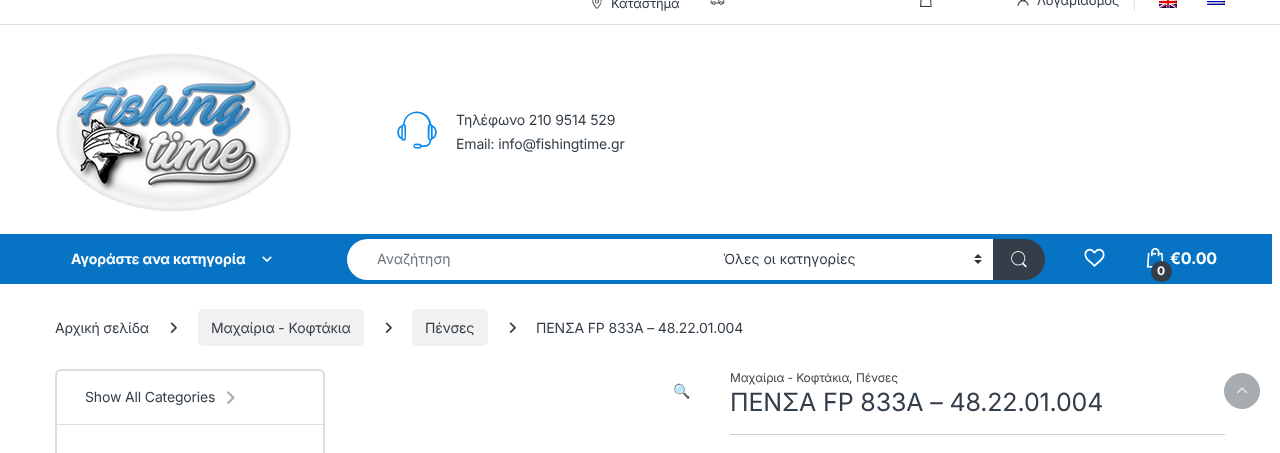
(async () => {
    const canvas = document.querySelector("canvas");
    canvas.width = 1280;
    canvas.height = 453;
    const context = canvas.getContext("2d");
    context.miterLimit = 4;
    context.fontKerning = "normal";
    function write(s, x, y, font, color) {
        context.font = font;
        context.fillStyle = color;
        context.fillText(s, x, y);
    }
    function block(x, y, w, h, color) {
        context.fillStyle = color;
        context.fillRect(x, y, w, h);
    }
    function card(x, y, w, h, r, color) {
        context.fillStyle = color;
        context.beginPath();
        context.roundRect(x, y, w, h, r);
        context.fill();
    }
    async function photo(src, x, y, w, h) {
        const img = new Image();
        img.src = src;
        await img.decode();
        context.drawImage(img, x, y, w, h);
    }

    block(0, 0, 1280, 453, "rgb(255, 255, 255)");
    block(0, 24, 1280, 1, "rgb(221, 221, 221)");
    await photo("media/1.png", 592, 0, 10, 9);
    context.letterSpacing = "-0.15px";
    write("Κατάστημα", 611, 8, "13px Inter", "rgb(51, 62, 72)");
    await photo("media/2.png", 710, 0, 15, 5);
    await photo("media/3.png", 920, 0, 12, 7);
    await photo("media/4.png", 1017, 0, 12, 6);
    write("Λογαριασμός", 1037, 5, "13px Inter", "rgb(51, 62, 72)");
    write("|", 1132, 8, "13px Inter", "rgb(221, 221, 221)");
    await photo("media/5.png", 1159, 0, 18, 8);
    await photo("media/6.png", 1207, 0, 18, 5);
    await photo("media/7.png", 56, 53, 235, 159);
    await photo("media/8.png", 397, 111, 40, 38);
    write("Τηλέφωνο 210 9514 529", 456, 125, "14px Inter", "rgb(51, 62, 72)");
    write("Email: info@fishingtime.gr", 456, 149, "14px Inter", "rgb(51, 62, 72)");
    block(0, 234, 1272, 50, "rgb(7, 115, 197)");
    write("Αγοράστε ανα κατηγορία", 71, 264, "bold 14px Inter", "rgb(255, 255, 255)");
    await photo("media/9.png", 262, 256, 10, 6);
    context.beginPath();
    context.roundRect(347, 239, 365, 41, [20.5, 0, 0, 20.5]);
    context.fill();
    context.letterSpacing = "0px";
    write("Αναζήτηση", 377, 264, "14px Inter", "rgb(108, 117, 125)");
    block(712, 239, 281, 41, "rgb(255, 255, 255)");
    await photo("media/10.png", 974, 254, 8, 10);
    write("Όλες οι κατηγορίες", 723, 264, "14px Inter", "rgb(51, 62, 72)");
    context.beginPath();
    context.roundRect(993, 239, 52, 41, [0, 20.5, 20.5, 0]);
    context.fill();
    await photo("media/11.png", 1011, 251, 16, 17);
    await photo("media/12.png", 1084, 248, 21, 19);
    await photo("media/13.png", 1146, 248, 18, 20);
    context.letterSpacing = "-0.15px";
    write("€0.00", 1170, 264, "bold 16px Inter", "rgb(255, 255, 255)");
    context.fillStyle = "rgb(51, 62, 72)";
    context.beginPath();
    context.arc(1161.5, 271.5, 10.5, 0, Math.PI * 2);
    context.fill();
    write("0", 1157, 275, "bold 12px Inter", "rgb(255, 255, 255)");
    write("Αρχική σελίδα", 55, 333, "14px Inter", "rgb(51, 62, 72)");
    await photo("media/14.png", 170, 322, 7, 11);
    card(198, 309, 166, 37, 5, "rgb(241, 241, 241)");
    write("Μαχαίρια - Κοφτάκια", 211, 333, "14px Inter", "rgb(51, 62, 72)");
    await photo("media/14.png", 385, 322, 7, 11);
    card(412, 309, 76, 37, 5, "rgb(241, 241, 241)");
    write("Πένσες", 425, 333, "14px Inter", "rgb(51, 62, 72)");
    await photo("media/14.png", 509, 322, 7, 11);
    write("ΠΕΝΣΑ FP 833A – 48.22.01.004", 536, 333, "14px Inter", "rgb(51, 62, 72)");
    context.beginPath();
    context.roundRect(56, 370, 268, 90, 5);
    context.strokeStyle = "rgb(221, 221, 221)";
    context.lineWidth = 2;
    context.stroke();
    block(57, 424, 266, 1, "rgb(221, 221, 221)");
    write("Show All Categories", 85, 402, "14px Inter", "rgb(51, 62, 72)");
    await photo("media/15.png", 227, 391, 8, 13);
    write("🔍", 673, 396, "14px Noto Color Emoji", "rgb(51, 62, 72)");
    write("Μαχαίρια - Κοφτάκια", 730, 382, "12px Inter", "rgb(68, 68, 68)");
    write(",", 849, 382, "12px Inter", "rgb(51, 62, 72)");
    write("Πένσες", 856, 382, "12px Inter", "rgb(68, 68, 68)");
    write("ΠΕΝΣΑ FP 833A – 48.22.01.004", 730, 411, "25px Inter", "rgb(51, 62, 72)");
    block(730, 434, 495, 1, "rgb(204, 207, 209)");
    context.fillStyle = "rgb(167, 172, 177)";
    context.beginPath();
    context.arc(1242, 391, 17.5, 0, Math.PI * 2);
    context.fill();
    context.strokeStyle = "rgb(167, 172, 177)";
    context.lineWidth = 1;
    context.stroke();
    await photo("media/16.png", 1237, 387, 11, 7);
})();
